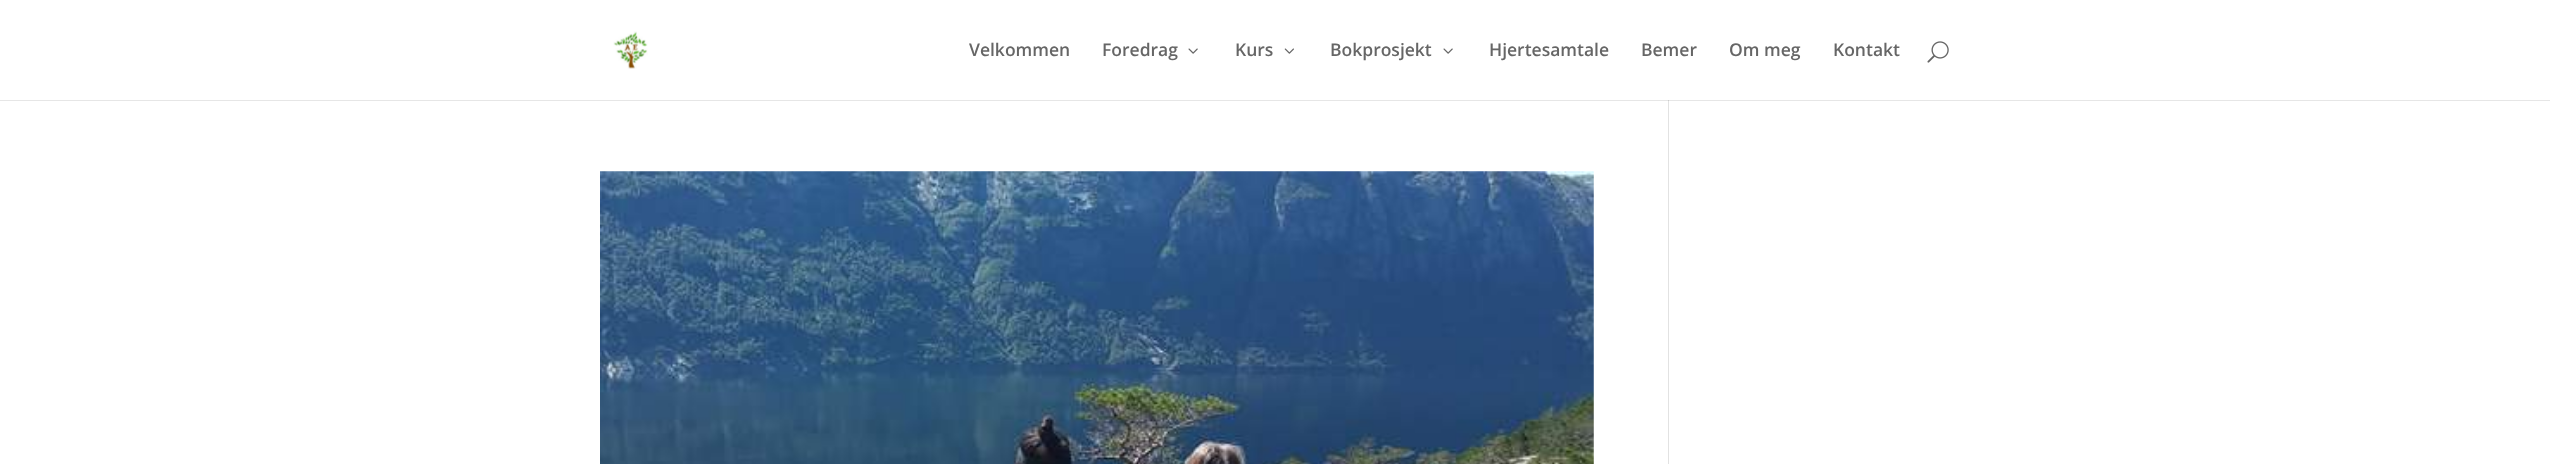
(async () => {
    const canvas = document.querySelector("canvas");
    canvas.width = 2550;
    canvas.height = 464;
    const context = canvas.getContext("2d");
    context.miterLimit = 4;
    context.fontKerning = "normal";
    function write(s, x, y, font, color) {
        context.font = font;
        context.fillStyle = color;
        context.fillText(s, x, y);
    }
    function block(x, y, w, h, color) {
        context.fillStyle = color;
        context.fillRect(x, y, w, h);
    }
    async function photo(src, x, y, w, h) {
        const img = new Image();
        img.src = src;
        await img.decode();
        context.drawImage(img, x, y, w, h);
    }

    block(0, 0, 2550, 464, "rgb(255, 255, 255)");
    block(0, 100, 2550, 1, "rgb(230, 230, 230)");
    block(1668, 99, 1, 365, "rgb(226, 226, 226)");
    block(1668, 99, 1, 1, "rgb(255, 255, 255)");
    await photo("media/1.png", 613, 31, 35, 38);
    write("Velkommen", 969, 56, "600 17.5px Open Sans", "rgb(102, 102, 102)");
    write("Foredrag", 1102, 56, "600 17.5px Open Sans", "rgb(102, 102, 102)");
    await photo("media/2.png", 1188, 48, 10, 6);
    write("Kurs", 1235, 56, "600 17.5px Open Sans", "rgb(102, 102, 102)");
    await photo("media/3.png", 1284, 48, 10, 6);
    write("Bokprosjekt", 1330, 56, "600 17.5px Open Sans", "rgb(102, 102, 102)");
    await photo("media/2.png", 1443, 48, 10, 6);
    write("Hjertesamtale", 1489, 56, "600 17.5px Open Sans", "rgb(102, 102, 102)");
    write("Bemer", 1641, 56, "600 17.5px Open Sans", "rgb(102, 102, 102)");
    write("Om meg", 1729, 56, "600 17.5px Open Sans", "rgb(102, 102, 102)");
    write("Kontakt", 1833, 56, "600 17.5px Open Sans", "rgb(102, 102, 102)");
    await photo("media/4.png", 1927, 41, 22, 22);
    await photo("media/5.png", 600, 171, 994, 293);
    block(1668, 100, 1, 1, "rgb(203, 203, 203)");
})();
